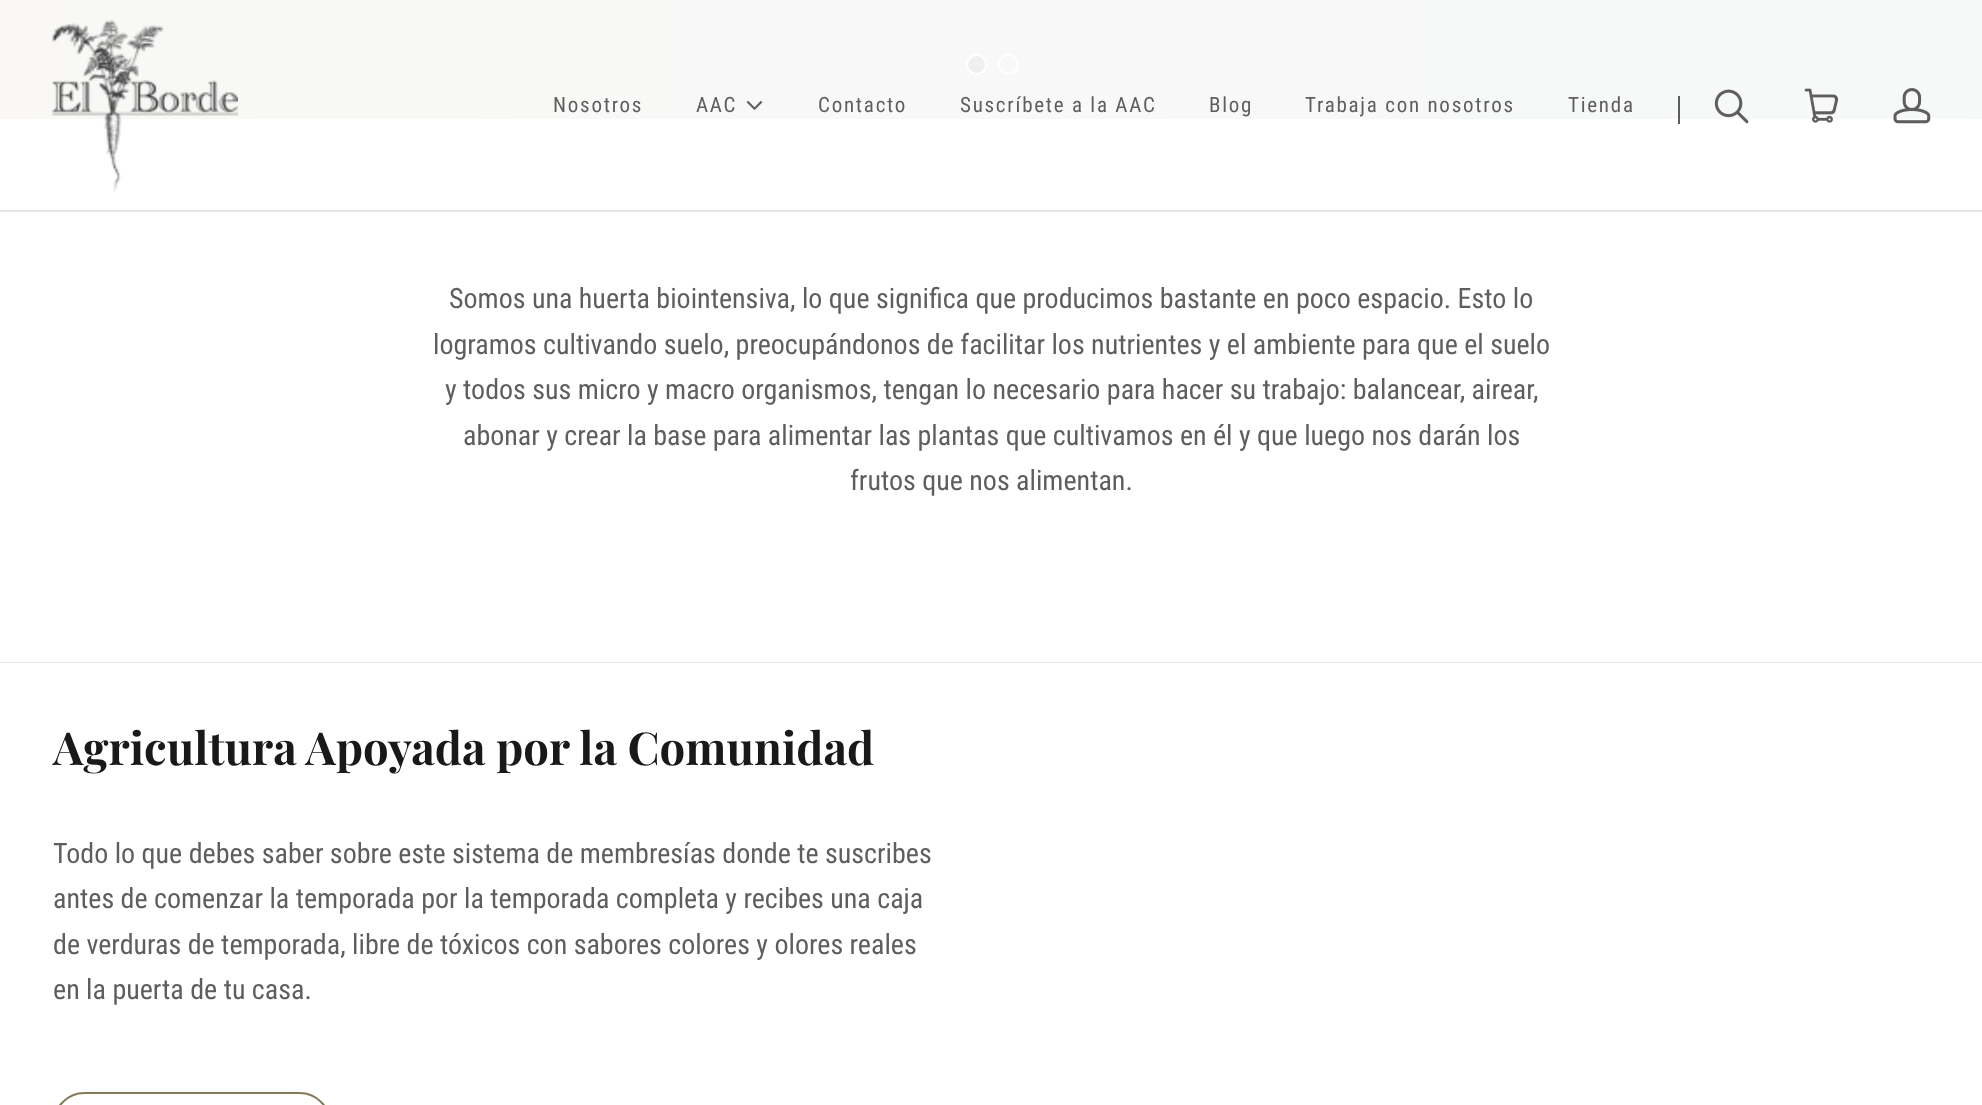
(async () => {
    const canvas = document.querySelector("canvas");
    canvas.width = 1982;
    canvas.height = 1105;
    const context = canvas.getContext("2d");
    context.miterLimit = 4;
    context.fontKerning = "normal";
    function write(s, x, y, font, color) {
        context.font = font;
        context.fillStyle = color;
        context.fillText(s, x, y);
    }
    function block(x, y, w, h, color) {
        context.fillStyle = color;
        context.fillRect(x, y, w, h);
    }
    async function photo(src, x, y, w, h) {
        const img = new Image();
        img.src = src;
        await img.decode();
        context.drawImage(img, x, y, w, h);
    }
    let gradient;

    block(0, 0, 1982, 1105, "rgb(255, 255, 255)");
    block(0, 210, 1982, 2, "rgb(230, 230, 230)");
    gradient = context.createLinearGradient(0, -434, 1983, -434);
    gradient.addColorStop(0, "rgb(249, 248, 247)");
    gradient.addColorStop(1, "rgb(246, 249, 248)");
    context.fillStyle = gradient;
    context.fillRect(0, 0, 1982, 119);
    await photo("media/1.png", 52, 20, 186, 172);
    context.letterSpacing = "1.75px";
    write("Nosotros", 553, 112, "21px Roboto Condensed", "rgb(94, 94, 94)");
    write("AAC", 696, 112, "21px Roboto Condensed", "rgb(94, 94, 94)");
    await photo("media/2.png", 746, 101, 17, 9);
    write("Contacto", 818, 112, "21px Roboto Condensed", "rgb(94, 94, 94)");
    write("Suscríbete a la AAC", 960, 112, "21px Roboto Condensed", "rgb(94, 94, 94)");
    write("Blog", 1209, 112, "21px Roboto Condensed", "rgb(94, 94, 94)");
    write("Trabaja con nosotros", 1305, 112, "21px Roboto Condensed", "rgb(94, 94, 94)");
    write("Tienda", 1568, 112, "21px Roboto Condensed", "rgb(94, 94, 94)");
    block(1678, 96, 2, 28, "rgb(94, 94, 94)");
    await photo("media/3.png", 1714, 89, 35, 35);
    await photo("media/4.png", 1804, 88, 35, 35);
    await photo("media/5.png", 1893, 88, 38, 36);
    context.fillStyle = "rgb(239, 239, 239)";
    context.beginPath();
    context.arc(976.5, 64.5, 9.5, 0, Math.PI * 2);
    context.fill();
    context.strokeStyle = "rgb(255, 255, 255)";
    context.lineWidth = 2;
    context.stroke();
    context.beginPath();
    context.arc(1008.5, 64.5, 9.5, 0, Math.PI * 2);
    context.stroke();
    block(0, 662, 1982, 1, "rgb(230, 230, 230)");
    context.letterSpacing = "0px";
    write("Somos una huerta biointensiva, lo que significa que producimos bastante en poco espacio. Esto lo", 449, 308, "28px Roboto Condensed", "rgb(94, 94, 94)");
    write("logramos cultivando suelo, preocupándonos de facilitar los nutrientes y el ambiente para que el suelo", 433, 354, "28px Roboto Condensed", "rgb(94, 94, 94)");
    write("y todos sus micro y macro organismos, tengan lo necesario para hacer su trabajo: balancear, airear,", 445, 399, "28px Roboto Condensed", "rgb(94, 94, 94)");
    write("abonar y crear la base para alimentar las plantas que cultivamos en él y que luego nos darán los", 463, 445, "28px Roboto Condensed", "rgb(94, 94, 94)");
    write("frutos que nos alimentan.", 850, 490, "28px Roboto Condensed", "rgb(94, 94, 94)");
    write("Agricultura Apoyada por la Comunidad", 53, 765, "bold 45.5px Playfair Display", "rgb(25, 25, 25)");
    write("Todo lo que debes saber sobre este sistema de membresías donde te suscribes", 53, 863, "28px Roboto Condensed", "rgb(94, 94, 94)");
    write("antes de comenzar la temporada por la temporada completa y recibes una caja", 53, 908, "28px Roboto Condensed", "rgb(94, 94, 94)");
    write("de verduras de temporada, libre de tóxicos con sabores colores y olores reales", 53, 954, "28px Roboto Condensed", "rgb(94, 94, 94)");
    write("en la puerta de tu casa.", 53, 999, "28px Roboto Condensed", "rgb(94, 94, 94)");
    context.beginPath();
    context.roundRect(54, 1093, 276, 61, 46.5);
    context.strokeStyle = "rgb(133, 123, 88)";
    context.stroke();
})();
